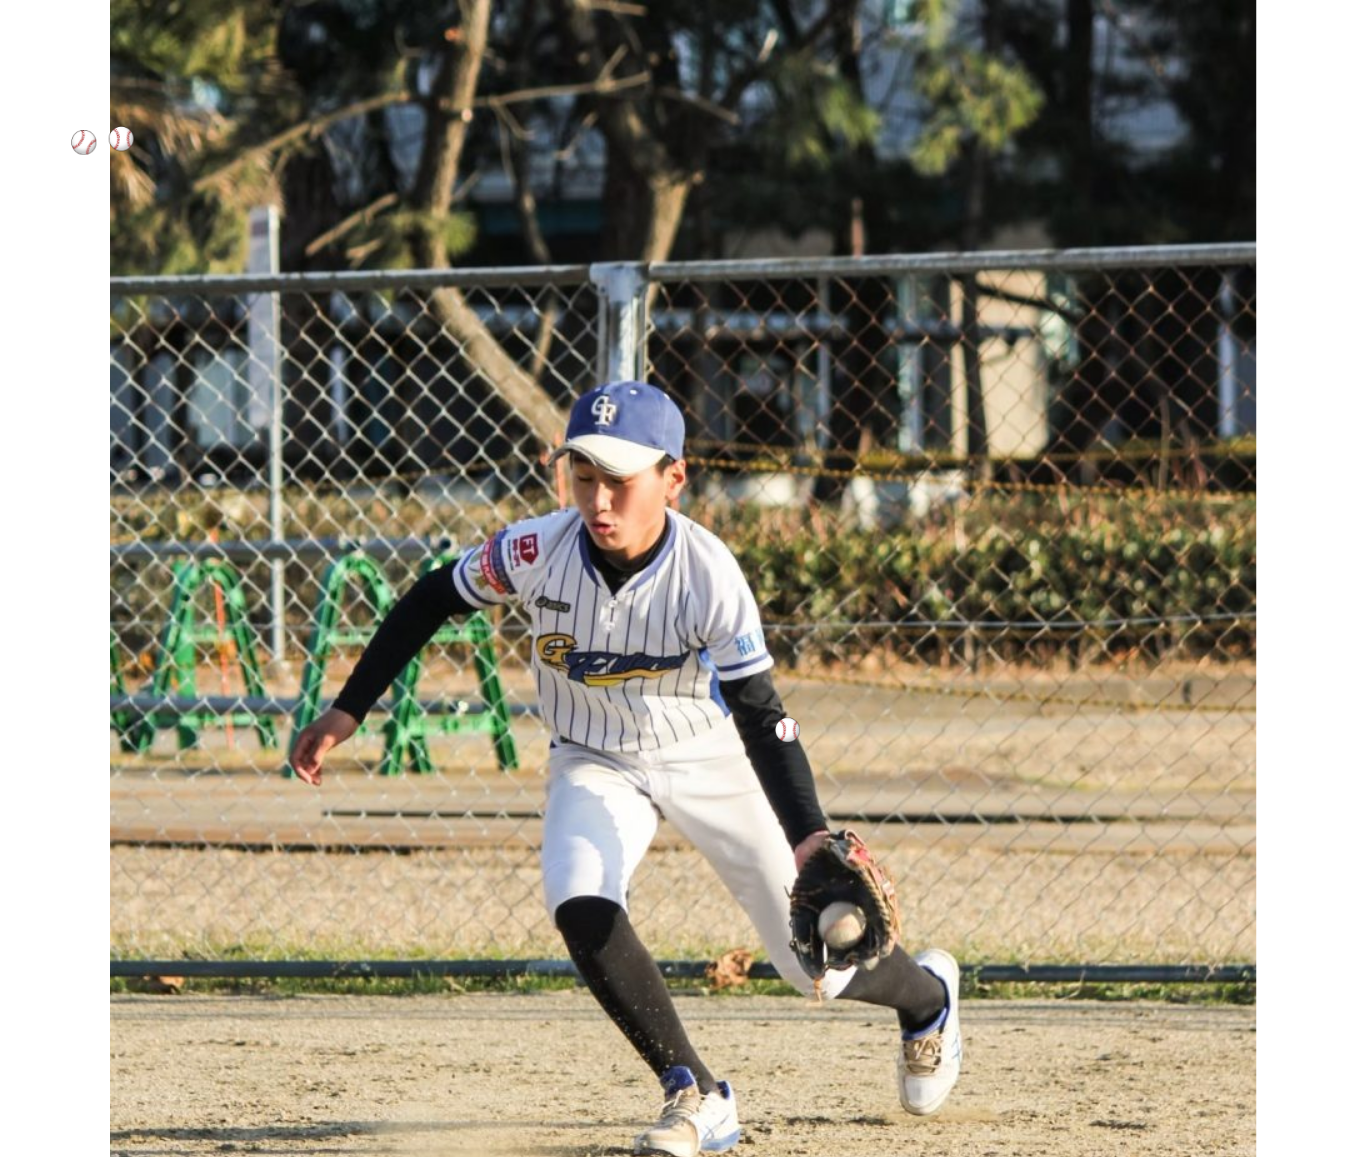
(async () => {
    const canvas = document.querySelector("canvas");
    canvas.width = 1366;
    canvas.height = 1157;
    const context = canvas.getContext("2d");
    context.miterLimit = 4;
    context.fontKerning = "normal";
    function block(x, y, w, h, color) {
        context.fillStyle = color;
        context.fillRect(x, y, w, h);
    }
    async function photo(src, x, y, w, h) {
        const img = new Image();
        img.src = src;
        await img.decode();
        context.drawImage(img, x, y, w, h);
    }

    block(0, 0, 1366, 1157, "rgb(255, 255, 255)");
    await photo("media/1.png", 110, 0, 1147, 1157);
    await photo("media/2.png", 71, 130, 26, 25);
    await photo("media/3.png", 108, 126, 26, 26);
    await photo("media/4.png", 775, 717, 25, 26);
})();
